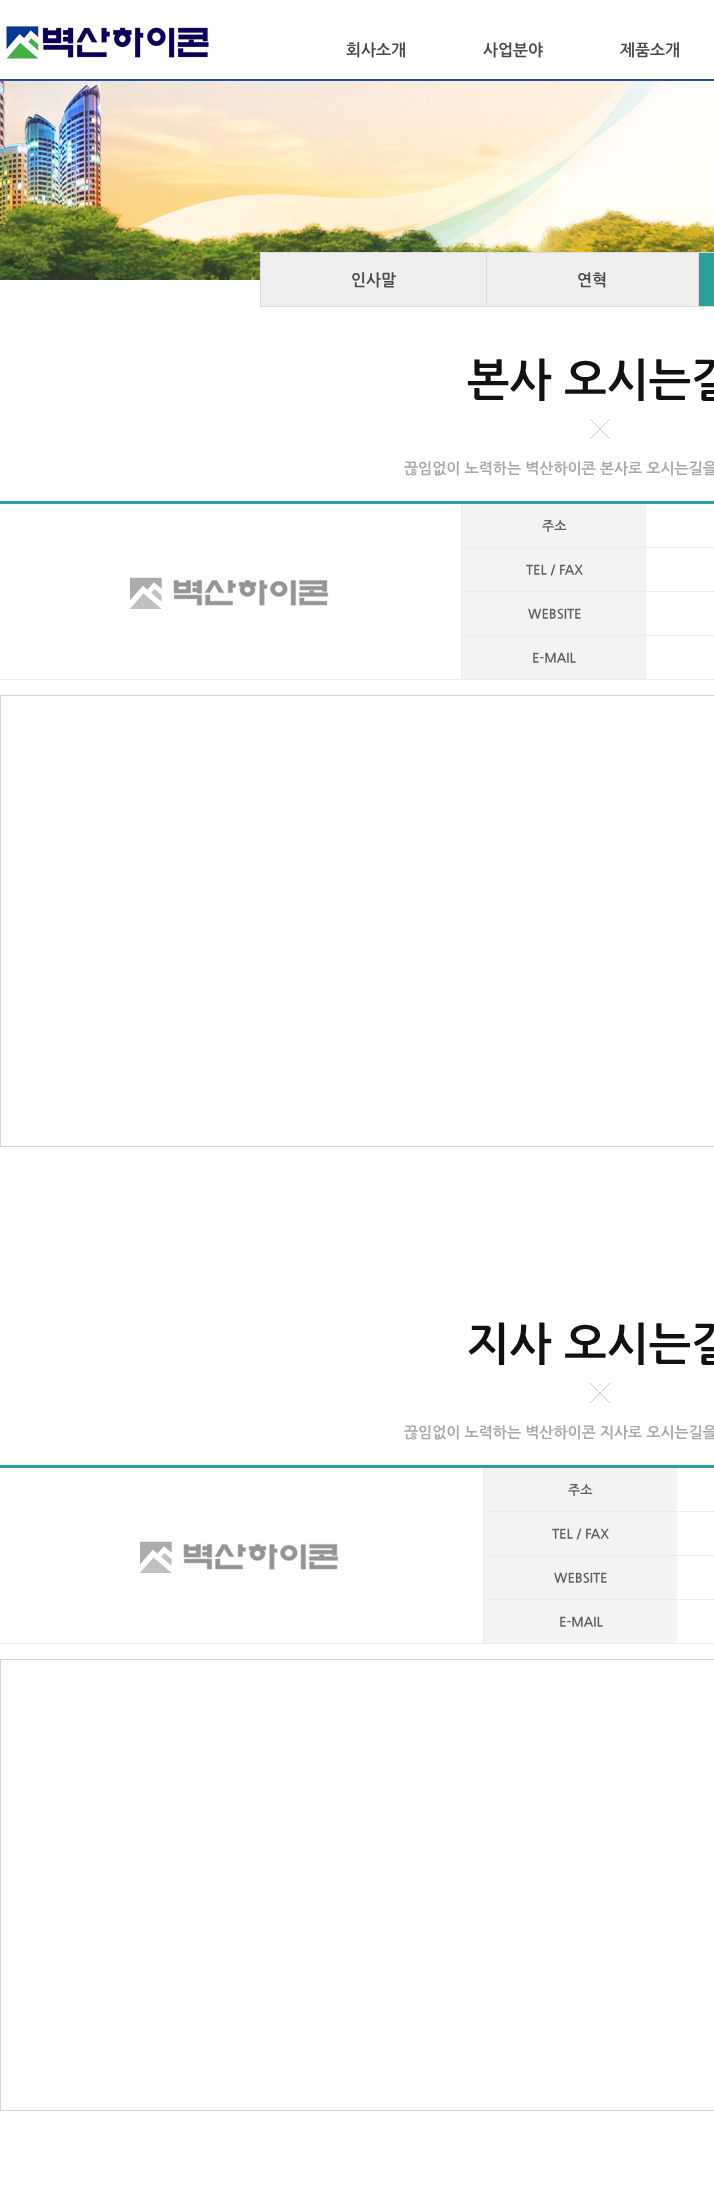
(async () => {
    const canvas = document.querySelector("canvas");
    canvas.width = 714;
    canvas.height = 2205;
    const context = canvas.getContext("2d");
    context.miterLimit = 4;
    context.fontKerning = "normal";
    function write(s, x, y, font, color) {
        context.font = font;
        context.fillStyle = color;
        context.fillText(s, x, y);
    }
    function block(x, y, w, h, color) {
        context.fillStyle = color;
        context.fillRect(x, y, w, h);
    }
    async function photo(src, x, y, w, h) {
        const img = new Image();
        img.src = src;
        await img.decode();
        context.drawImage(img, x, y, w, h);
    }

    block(0, 0, 714, 2205, "rgb(255, 255, 255)");
    block(0, 79, 714, 1, "rgb(23, 70, 158)");
    await photo("media/1.png", 6, 26, 203, 33);
    write("회사소개", 346, 55, "bold 16px NanumGothic", "rgb(75, 75, 75)");
    write("사업분야", 483, 55, "bold 16px NanumGothic", "rgb(75, 75, 75)");
    write("제품소개", 620, 55, "bold 16px NanumGothic", "rgb(75, 75, 75)");
    await photo("media/2.png", 0, 80, 714, 200);
    context.strokeStyle = "rgb(221, 221, 221)";
    context.strokeRect(260.5, 252.5, 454, 54);
    block(261, 253, 225, 53, "rgb(239, 239, 239)");
    write("인사말", 351, 285, "bold 16px NanumGothic", "rgb(75, 75, 75)");
    block(487, 253, 211, 53, "rgb(239, 239, 239)");
    block(486, 253, 1, 53, "rgb(221, 221, 221)");
    write("연혁", 577, 285, "bold 16px NanumGothic", "rgb(75, 75, 75)");
    block(699, 253, 15, 53, "rgb(40, 160, 156)");
    block(698, 253, 1, 53, "rgb(221, 221, 221)");
    write("본사 오시는길", 467, 394, "bold 45px NanumGothic", "rgb(17, 17, 17)");
    await photo("media/3.png", 590, 419, 20, 20);
    write("끊임없이 노력하는 벽산하이콘 본사로 오시는길을", 404, 473, "bold 15px NanumGothic", "rgb(169, 169, 169)");
    block(0, 501, 714, 3, "rgb(40, 160, 156)");
    block(461, 504, 1, 176, "rgb(236, 236, 236)");
    block(0, 679, 714, 1, "rgb(236, 236, 236)");
    await photo("media/4.png", 130, 577, 199, 32);
    block(462, 504, 184, 43, "rgb(243, 243, 243)");
    block(462, 547, 252, 1, "rgb(236, 236, 236)");
    write("주소", 542, 530, "bold 13px NanumGothic", "rgb(97, 97, 97)");
    block(462, 548, 184, 43, "rgb(243, 243, 243)");
    block(462, 591, 252, 1, "rgb(236, 236, 236)");
    write("TEL / FAX", 526, 574, "bold 13px NanumGothic", "rgb(97, 97, 97)");
    block(462, 592, 184, 43, "rgb(243, 243, 243)");
    block(462, 635, 252, 1, "rgb(236, 236, 236)");
    write("WEBSITE", 528, 618, "bold 13px NanumGothic", "rgb(97, 97, 97)");
    block(462, 636, 184, 43, "rgb(243, 243, 243)");
    write("E-MAIL", 532, 662, "bold 13px NanumGothic", "rgb(97, 97, 97)");
    context.strokeStyle = "rgb(212, 212, 212)";
    context.strokeRect(0.5, 695.5, 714, 451);
    write("지사 오시는길", 467, 1358, "bold 45px NanumGothic", "rgb(17, 17, 17)");
    await photo("media/3.png", 590, 1383, 20, 20);
    write("끊임없이 노력하는 벽산하이콘 지사로 오시는길을", 404, 1437, "bold 15px NanumGothic", "rgb(169, 169, 169)");
    block(0, 1465, 714, 3, "rgb(40, 160, 156)");
    block(483, 1468, 1, 176, "rgb(236, 236, 236)");
    block(0, 1643, 714, 1, "rgb(236, 236, 236)");
    await photo("media/4.png", 140, 1541, 199, 32);
    block(484, 1468, 193, 43, "rgb(243, 243, 243)");
    block(484, 1511, 230, 1, "rgb(236, 236, 236)");
    write("주소", 568, 1494, "bold 13px NanumGothic", "rgb(97, 97, 97)");
    block(484, 1512, 193, 43, "rgb(243, 243, 243)");
    block(484, 1555, 230, 1, "rgb(236, 236, 236)");
    write("TEL / FAX", 552, 1538, "bold 13px NanumGothic", "rgb(97, 97, 97)");
    block(484, 1556, 193, 43, "rgb(243, 243, 243)");
    block(484, 1599, 230, 1, "rgb(236, 236, 236)");
    write("WEBSITE", 554, 1582, "bold 13px NanumGothic", "rgb(97, 97, 97)");
    block(484, 1600, 193, 43, "rgb(243, 243, 243)");
    write("E-MAIL", 559, 1626, "bold 13px NanumGothic", "rgb(97, 97, 97)");
    context.strokeRect(0.5, 1659.5, 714, 451);
})();
